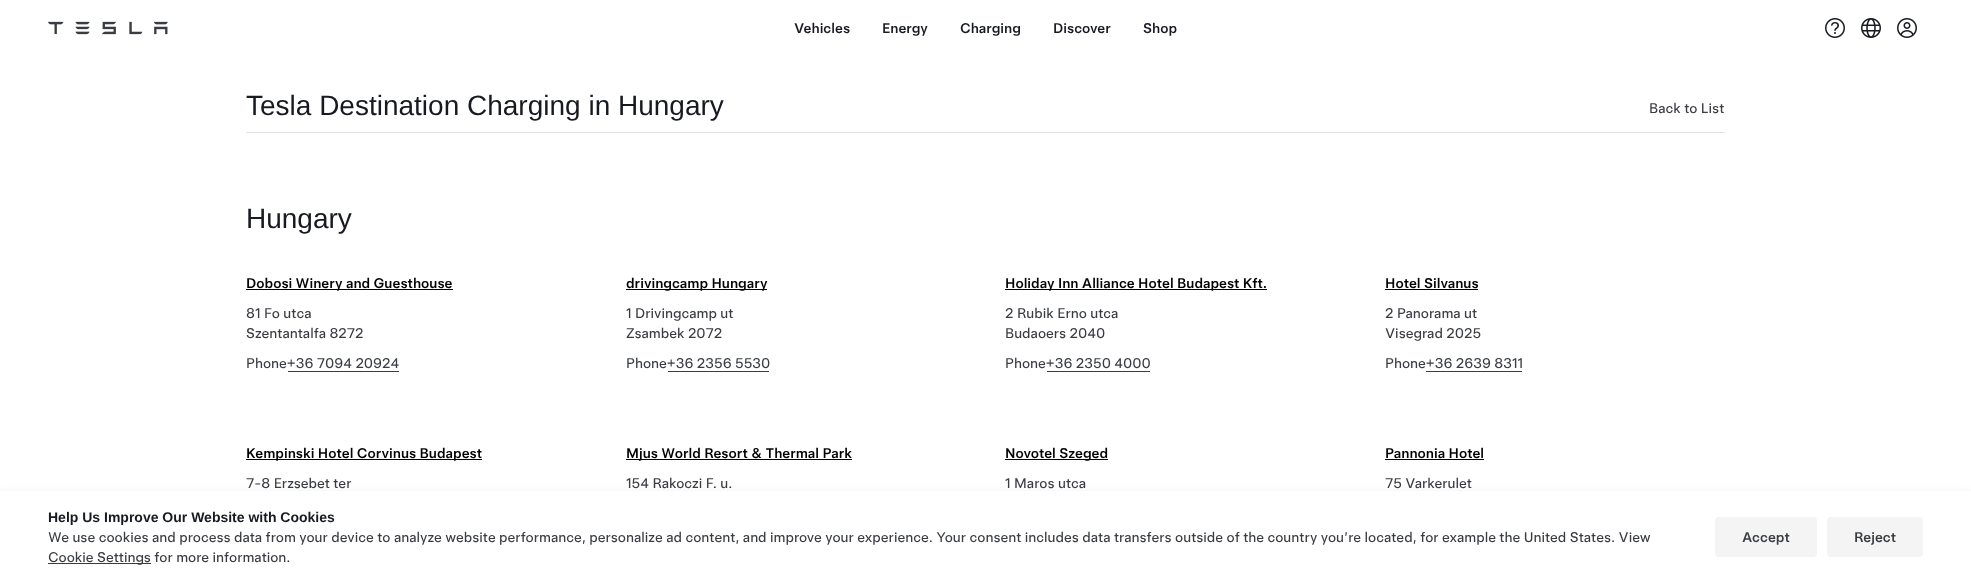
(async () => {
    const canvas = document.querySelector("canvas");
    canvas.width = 1971;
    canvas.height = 583;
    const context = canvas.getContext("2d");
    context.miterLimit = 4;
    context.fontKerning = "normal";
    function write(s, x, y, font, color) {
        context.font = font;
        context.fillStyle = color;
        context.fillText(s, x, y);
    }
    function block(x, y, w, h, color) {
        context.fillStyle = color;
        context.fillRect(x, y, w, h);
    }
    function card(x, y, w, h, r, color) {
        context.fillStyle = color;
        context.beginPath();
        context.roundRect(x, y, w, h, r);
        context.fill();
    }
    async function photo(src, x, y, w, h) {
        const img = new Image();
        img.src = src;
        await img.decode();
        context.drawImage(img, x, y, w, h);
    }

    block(0, 0, 1971, 583, "rgb(255, 255, 255)");
    await photo("media/1.png", 48, 21, 120, 14);
    write("Vehicles", 794, 33, "500 14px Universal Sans", "rgb(23, 26, 32)");
    write("Energy", 882, 33, "500 14px Universal Sans", "rgb(23, 26, 32)");
    write("Charging", 960, 33, "500 14px Universal Sans", "rgb(23, 26, 32)");
    write("Discover", 1053, 33, "500 14px Universal Sans", "rgb(23, 26, 32)");
    write("Shop", 1143, 33, "500 14px Universal Sans", "rgb(23, 26, 32)");
    await photo("media/2.png", 1825, 18, 20, 20);
    await photo("media/3.png", 1861, 18, 20, 20);
    await photo("media/4.png", 1897, 18, 20, 20);
    block(246, 132, 1479, 1, "rgb(226, 227, 227)");
    write("Tesla Destination Charging in Hungary", 246, 115, "28px Liberation Sans", "rgb(23, 26, 32)");
    write("Back to List", 1649, 113, "14px Universal Sans", "rgb(57, 60, 65)");
    write("Hungary", 246, 228, "28px Liberation Sans", "rgb(23, 26, 32)");
    block(246, 289, 207, 1, "rgb(0, 0, 0)");
    write("Dobosi Winery and Guesthouse", 246, 288, "500 14px Universal Sans", "rgb(0, 0, 0)");
    write("81 Fo utca", 246, 318, "14px Universal Sans", "rgb(57, 60, 65)");
    write("Szentantalfa 8272", 246, 338, "14px Universal Sans", "rgb(57, 60, 65)");
    write("Phone+36 7094 20924", 246, 368, "14px Universal Sans", "rgb(57, 60, 65)");
    block(288, 371, 111, 1, "rgb(57, 60, 65)");
    block(626, 289, 141, 1, "rgb(0, 0, 0)");
    write("drivingcamp Hungary", 626, 288, "500 14px Universal Sans", "rgb(0, 0, 0)");
    write("1 Drivingcamp ut", 626, 318, "14px Universal Sans", "rgb(57, 60, 65)");
    write("Zsambek 2072", 626, 338, "14px Universal Sans", "rgb(57, 60, 65)");
    write("Phone+36 2356 5530", 626, 368, "14px Universal Sans", "rgb(57, 60, 65)");
    block(668, 371, 101, 1, "rgb(57, 60, 65)");
    block(1005, 289, 262, 1, "rgb(0, 0, 0)");
    write("Holiday Inn Alliance Hotel Budapest Kft.", 1005, 288, "500 14px Universal Sans", "rgb(0, 0, 0)");
    write("2 Rubik Erno utca", 1005, 318, "14px Universal Sans", "rgb(57, 60, 65)");
    write("Budaoers 2040", 1005, 338, "14px Universal Sans", "rgb(57, 60, 65)");
    write("Phone+36 2350 4000", 1005, 368, "14px Universal Sans", "rgb(57, 60, 65)");
    block(1047, 371, 103, 1, "rgb(57, 60, 65)");
    write("Hotel Silvanus", 1385, 288, "500 14px Universal Sans", "rgb(0, 0, 0)");
    block(1385, 289, 93, 1, "rgb(0, 0, 0)");
    write("2 Panorama ut", 1385, 318, "14px Universal Sans", "rgb(57, 60, 65)");
    write("Visegrad 2025", 1385, 338, "14px Universal Sans", "rgb(57, 60, 65)");
    write("Phone+36 2639 8311", 1385, 368, "14px Universal Sans", "rgb(57, 60, 65)");
    block(1426, 371, 96, 1, "rgb(57, 60, 65)");
    block(246, 459, 236, 1, "rgb(0, 0, 0)");
    write("Kempinski Hotel Corvinus Budapest", 246, 458, "500 14px Universal Sans", "rgb(0, 0, 0)");
    write("7-8 Erzsebet ter", 246, 488, "14px Universal Sans", "rgb(57, 60, 65)");
    block(626, 459, 226, 1, "rgb(0, 0, 0)");
    write("Mjus World Resort & Thermal Park", 626, 458, "500 14px Universal Sans", "rgb(0, 0, 0)");
    write("154 Rakoczi F. u.", 626, 488, "14px Universal Sans", "rgb(57, 60, 65)");
    block(1005, 459, 103, 1, "rgb(0, 0, 0)");
    write("Novotel Szeged", 1005, 458, "500 14px Universal Sans", "rgb(0, 0, 0)");
    write("1 Maros utca", 1005, 488, "14px Universal Sans", "rgb(57, 60, 65)");
    write("Pannonia Hotel", 1385, 458, "500 14px Universal Sans", "rgb(0, 0, 0)");
    block(1385, 459, 99, 1, "rgb(0, 0, 0)");
    write("75 Varkerulet", 1385, 488, "14px Universal Sans", "rgb(57, 60, 65)");
    context.fillStyle = "rgba(0, 0, 0, 0.16)";
    context.filter = "blur(8px)";
    context.beginPath();
    context.rect(0, 499, 1971, 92);
    context.fill();
    context.filter = "none";
    block(0, 491, 1971, 92, "rgb(255, 255, 255)");
    write("Help Us Improve Our Website with Cookies", 48, 522, "bold 14px Liberation Sans", "rgb(23, 26, 32)");
    write("We use cookies and process data from your device to analyze website performance, personalize ad content, and improve your experience. Your consent includes data transfers outside of the country you’re located, for example the United States. View", 48, 542, "14px Universal Sans", "rgb(57, 60, 65)");
    block(48, 563, 103, 1, "rgb(57, 60, 65)");
    write("Cookie Settings for more information.", 48, 562, "14px Universal Sans", "rgb(57, 60, 65)");
    card(1715, 517, 102, 40, 4, "rgb(244, 244, 244)");
    write("Accept", 1742, 542, "500 14px Universal Sans", "rgb(57, 60, 65)");
    card(1827, 517, 96, 40, 4, "rgb(244, 244, 244)");
    write("Reject", 1854, 542, "500 14px Universal Sans", "rgb(57, 60, 65)");
})();
